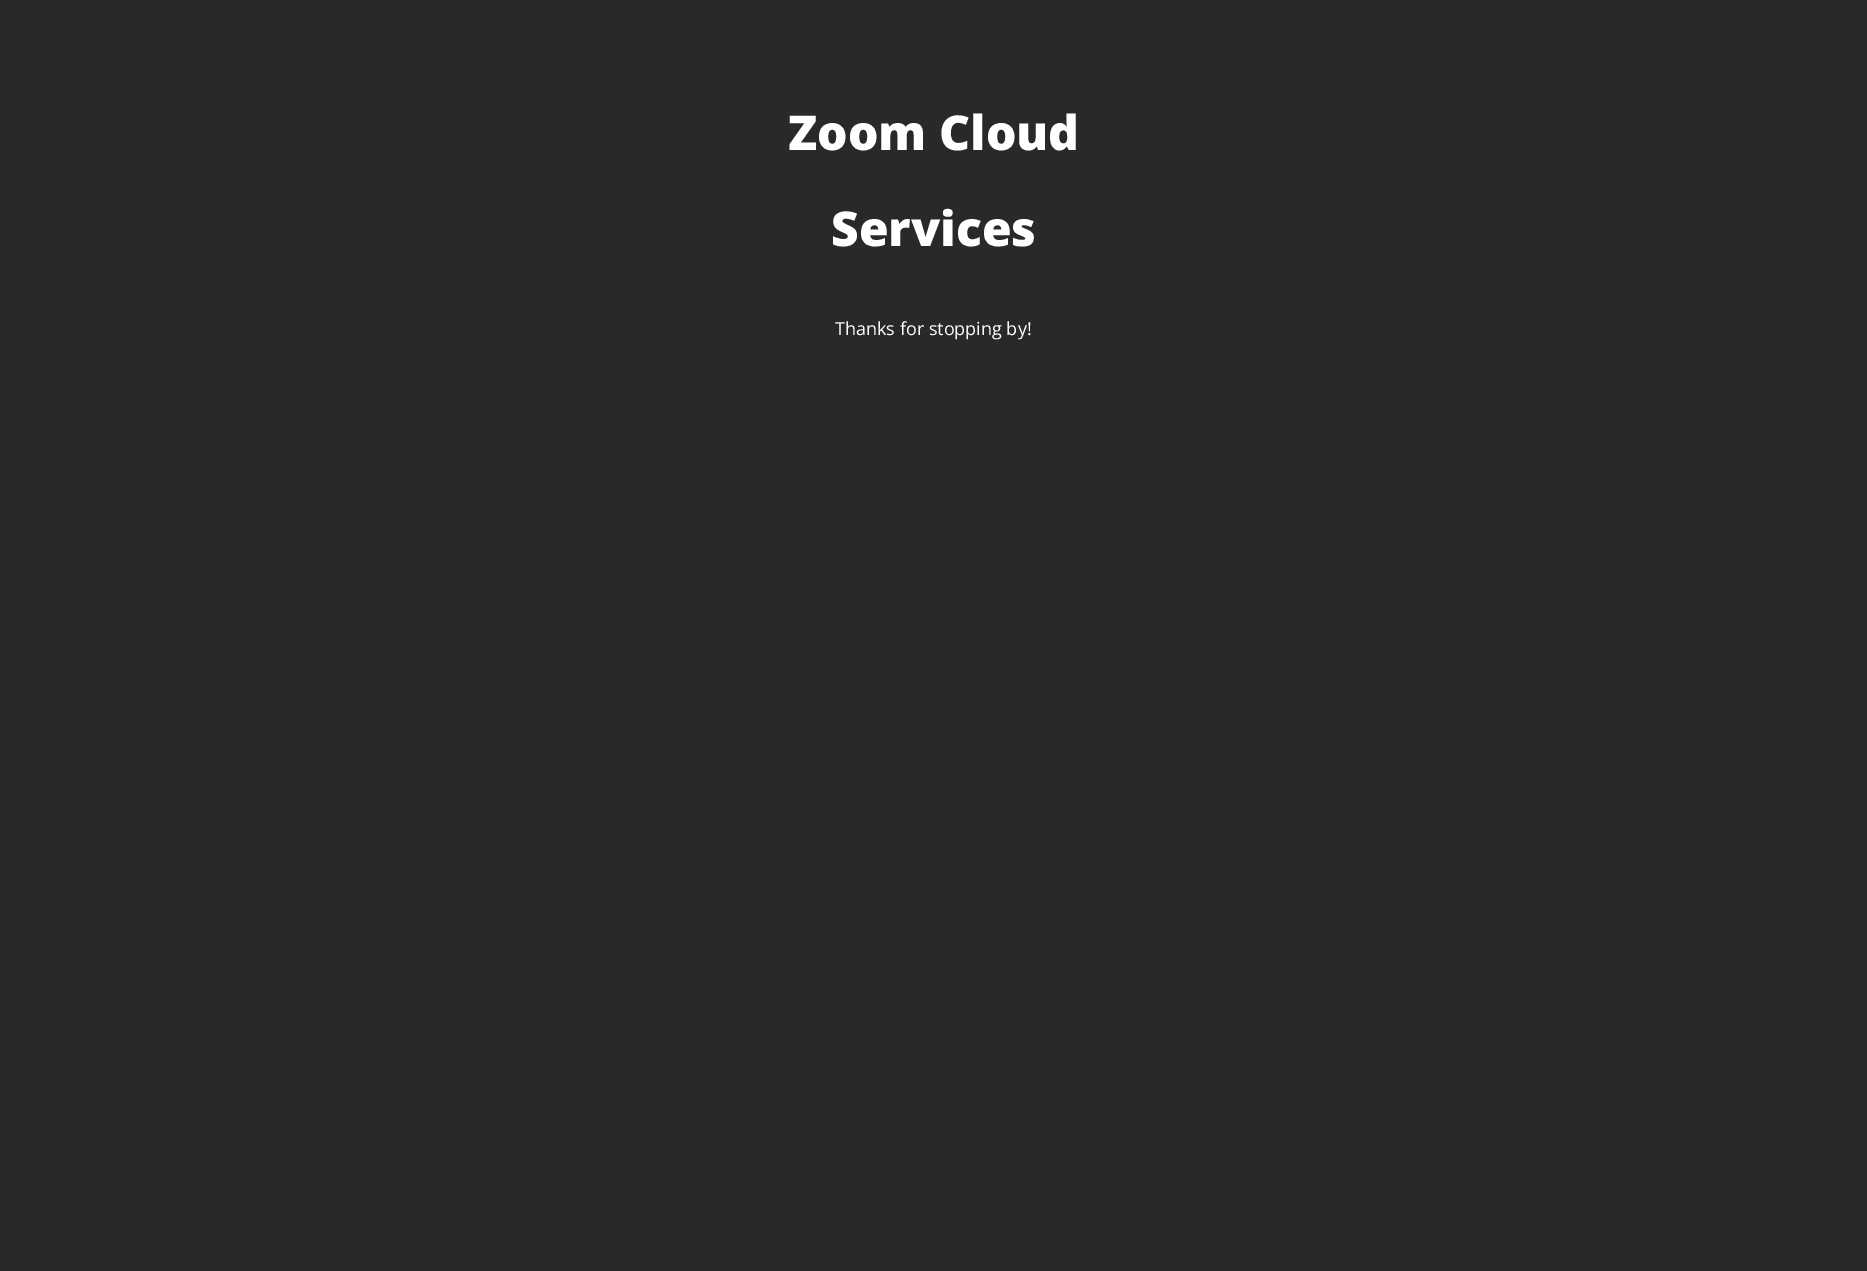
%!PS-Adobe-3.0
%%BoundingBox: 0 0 1867 1271
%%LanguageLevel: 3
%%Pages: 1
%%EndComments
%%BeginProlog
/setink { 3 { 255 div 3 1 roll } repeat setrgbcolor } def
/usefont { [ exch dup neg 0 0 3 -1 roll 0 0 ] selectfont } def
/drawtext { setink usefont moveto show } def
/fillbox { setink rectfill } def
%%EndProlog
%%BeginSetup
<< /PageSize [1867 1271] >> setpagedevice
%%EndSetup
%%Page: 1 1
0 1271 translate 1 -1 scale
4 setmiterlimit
0 0 1867 1271 41 41 41 fillbox
(Zoom Cloud) 788 150 /OpenSans-ExtraBold 48 255 255 255 drawtext
(Services) 831 246 /OpenSans-ExtraBold 48 255 255 255 drawtext
(Thanks for stopping by!) 835 335 /OpenSans-Regular 18 255 255 255 drawtext
showpage
%%EOF
